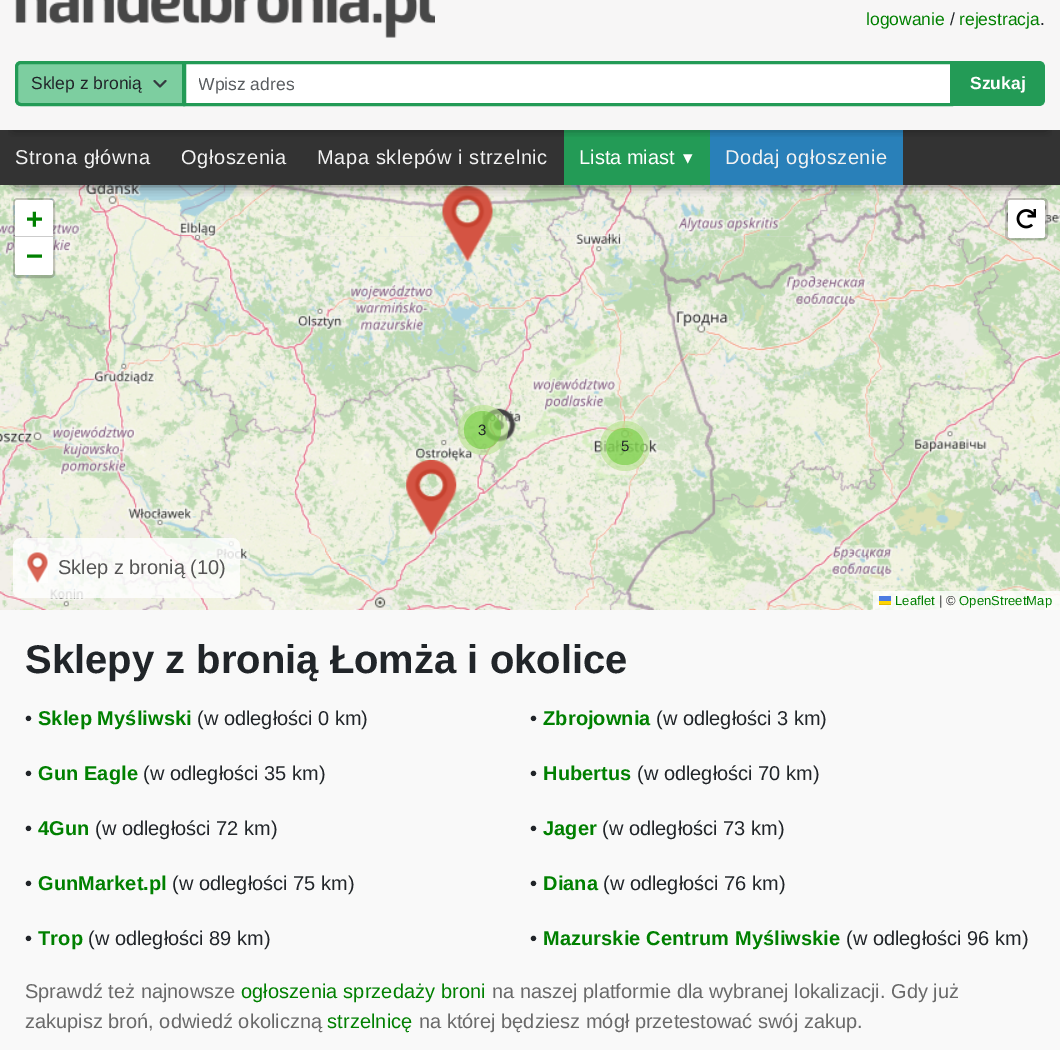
%!PS-Adobe-3.0
%%BoundingBox: 0 0 1060 1050
%%LanguageLevel: 3
%%Pages: 1
%%EndComments
%%BeginProlog
/setink { 3 { 255 div 3 1 roll } repeat setrgbcolor } def
/usefont { [ exch dup neg 0 0 3 -1 roll 0 0 ] selectfont } def
/drawtext { setink usefont moveto show } def
/fillbox { setink rectfill } def
/setalpha { dup .setfillconstantalpha .setstrokeconstantalpha } def
/disc { newpath 0 360 arc closepath } def
/rrect { 5 dict begin { /r /h /w /y /x } { exch def } forall
  x r add y moveto x w add y 2 copy h add r arct x w add y h add x 1 index r arct
  x y h add x y r arct x y 2 copy exch w add exch r arct closepath end } def
/softshadow { 12 dict begin { /a /b /q /h /w /y /x } { exch def } forall gsave /was 0 def
  9 -2 -9 { dup b mul 4 div /e exch def 1 sub .425 mul 2.718 exch exp 1 add a .99 .min exch div /now exch def
    1 1 now sub 1 was sub div sub setalpha /was now def
    w h .min e 2 mul add 0 gt { x e sub y e sub w e 2 mul add h e 2 mul add
      q e add b .6 mul add w h .min 2 div e add .min 0 .max rrect fill } if } for grestore end } def
/drawimage { 5 dict begin { /h /w /y /x /name } { exch def } forall
  gsave x y translate w h scale
  w h 8 [w 0 0 h 0 0] name (r) file false 3 colorimage grestore end } def
%%EndProlog
%%BeginSetup
<< /PageSize [1060 1050] /PageUsesTransparency true >> setpagedevice
%%EndSetup
%%Page: 1 1
0 .pushpdf14devicefilter
0 1050 translate 1 -1 scale
4 setmiterlimit
0 0 1060 1050 247 246 246 fillbox
(assets/img4.rgb) 0 185 230 51 drawimage
(assets/img5.rgb) 230 185 320 51 drawimage
(assets/img6.rgb) 550 185 320 51 drawimage
(assets/img7.rgb) 870 185 190 51 drawimage
0 236 1060 814 249 249 249 fillbox
(assets/img9.rgb) 230 236 320 320 drawimage
(assets/img16.rgb) 442 186 51 76 drawimage
0 0 0 setink
15 158 1030 25 0 6 1 softshadow
0 130 1060 55 51 51 51 fillbox
564 130 146 55 35 155 86 fillbox
710 130 193 55 41 128 185 fillbox
gsave
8 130 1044 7 rectclip
0 0 0 setink
15 -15 1030 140 0 6 1 softshadow
grestore
(assets/img1.rgb) 15 0 420 38 drawimage
(logowanie) 866 25 /LiberationSans-Regular 17.5 0 128 0 drawtext
(/) 950 25 /LiberationSans-Regular 17.5 33 37 41 drawtext
(rejestracja) 959 25 /LiberationSans-Regular 17.5 0 128 0 drawtext
(.) 1040 25 /LiberationSans-Regular 17.5 33 37 41 drawtext
125 206 160 setink
21 61 moveto 185 61 lineto 185 106 lineto 21 106 lineto 17.5 106 15 103.5 15 100 curveto 15 67 lineto 15 63.5 17.5 61 21 61 curveto closepath fill
52 58 64 setink
1.9 setlinewidth
1 setlinecap
1 setlinejoin
154.5 81 moveto 160 86.5 lineto 165.5 81 lineto stroke
35 155 86 setink
3 setlinewidth
0 setlinecap
0 setlinejoin
21 62.5 moveto 183.5 62.5 lineto 183.5 104.5 lineto 21 104.5 lineto 18.5 104.5 16.5 102.5 16.5 100 curveto 16.5 67 lineto 16.5 64.5 18.5 62.5 21 62.5 curveto closepath stroke
(Sklep z bronią) 31 89 /LiberationSans-Regular 17.5 33 37 41 drawtext
255 255 255 setink
184.5 62.5 moveto 951.5 62.5 lineto 951.5 104.5 lineto 184.5 104.5 lineto closepath gsave fill grestore
35 155 86 setink
stroke
gsave
199 74 739 20 rectclip
(Wpisz adres) 198 90 /LiberationSans-Regular 17.5 89 92 95 drawtext
grestore
950 61 moveto 1039 61 lineto 1042.5 61 1045 63.5 1045 67 curveto 1045 100 lineto 1045 103.5 1042.5 106 1039 106 curveto 950 106 lineto closepath fill
(Szukaj) 970 89 /LiberationSans-Bold 17.5 255 255 255 drawtext
/LiberationSans-Regular 20 usefont
242 242 242 setink
15 164 moveto 0.6 0 (Strona główna) ashow
181 164 moveto 0.6 0 (Ogłoszenia) ashow
317 164 moveto 0.6 0 (Mapa sklepów i strzelnic) ashow
(Lista miast) 579 164 /LiberationSans-Regular 20 255 255 255 drawtext
/DejaVuSans-Regular 19 usefont
683 164 moveto 5 0 (▾) ashow
/LiberationSans-Regular 20 usefont
242 242 242 setink
725 164 moveto 0.6 0 (Dodaj ogłoszenie) ashow
(assets/img8.rgb) 0 236 230 320 drawimage
0.2 setalpha
0 0 0 setink
14.5 199.5 39 77 3.5 rrect stroke
1 setalpha
255 255 255 setink
17.5 200 moveto 50.5 200 lineto 52 200 53 201 53 202.5 curveto 53 238 lineto 15 238 lineto 15 202.5 lineto 15 201 16 200 17.5 200 curveto closepath fill
15 236 38 1 204 204 204 fillbox
/DejaVuSansMono-Bold 28 usefont
0 128 0 setink
26 228 moveto 0.1 0 (+) ashow
255 255 255 setink
15 238 moveto 53 238 lineto 53 272.5 lineto 53 274 52 275 50.5 275 curveto 17.5 275 lineto 16 275 15 274 15 272.5 curveto closepath fill
0 128 0 setink
26 265 moveto 0.1 0 (−) ashow
(assets/img11.rgb) 870 236 190 320 drawimage
0.2 setalpha
0 0 0 setink
1006.5 199.5 40 39 3.5 rrect stroke
1 setalpha
255 255 255 setink
1008 200 37 38 2.5 rrect fill
(assets/img2.rgb) 1016 209 20 20 drawimage
(assets/img12.rgb) 0 556 230 54 drawimage
(assets/img13.rgb) 230 556 320 54 drawimage
0.8 setalpha
13 538 227 60 8 rrect fill
0.72 setalpha
28 553 20 30 255 255 255 fillbox
1 setalpha
(assets/img3.rgb) 27 552 21 31 drawimage
(Sklep z bronią \(10\)) 58 574 /LiberationSans-Regular 20 85 85 85 drawtext
(assets/img15.rgb) 870 556 190 54 drawimage
0.8 setalpha
873 591 187 19 255 255 255 fillbox
/LiberationSans-Regular 13 usefont
1 setalpha
0 128 0 setink
895 605 moveto 0.1 0 (Leaflet) ashow
879 596 12 5 76 123 225 fillbox
879 601 12 3 255 213 0 fillbox
879 604 12 1 224 188 0 fillbox
(| ©) 939 605 /LiberationSans-Regular 13 51 51 51 drawtext
0 128 0 setink
959 605 moveto 0.1 0 (OpenStreetMap) ashow
(assets/img10.rgb) 550 236 320 320 drawimage
(assets/img14.rgb) 550 556 320 54 drawimage
(assets/img17.rgb) 482 408 34 34 drawimage
0.6 setalpha
182 226 141 setink
483 430 25 disc fill
110 204 57 setink
464 411 37 38 18.5 rrect fill
1 setalpha
(3) 478 435 /LiberationSans-Regular 15 33 37 41 drawtext
0.6 setalpha
182 226 141 setink
625 446 25 disc fill
110 204 57 setink
606 428 38 37 18.5 rrect fill
1 setalpha
(5) 621 451 /LiberationSans-Regular 15 33 37 41 drawtext
(assets/img18.rgb) 406 460 51 75 drawimage
(Sklepy z bronią Łomża i okolice) 25 673 /LiberationSans-Bold 40 33 37 41 drawtext
(•) 25 725 /LiberationSans-Regular 20 33 37 41 drawtext
/LiberationSans-Bold 20 usefont
0 128 0 setink
38 725 moveto 0.1 0 (Sklep Myśliwski) ashow
(\(w odległości 0 km\)) 197 725 /LiberationSans-Regular 20 33 37 41 drawtext
(•) 530 725 /LiberationSans-Regular 20 33 37 41 drawtext
/LiberationSans-Bold 20 usefont
0 128 0 setink
543 725 moveto 0.1 0 (Zbrojownia) ashow
(\(w odległości 3 km\)) 656 725 /LiberationSans-Regular 20 33 37 41 drawtext
(•) 25 780 /LiberationSans-Regular 20 33 37 41 drawtext
/LiberationSans-Bold 20 usefont
0 128 0 setink
38 780 moveto 0.1 0 (Gun Eagle) ashow
(\(w odległości 35 km\)) 143 780 /LiberationSans-Regular 20 33 37 41 drawtext
(•) 530 780 /LiberationSans-Regular 20 33 37 41 drawtext
/LiberationSans-Bold 20 usefont
0 128 0 setink
543 780 moveto 0.1 0 (Hubertus) ashow
(\(w odległości 70 km\)) 637 780 /LiberationSans-Regular 20 33 37 41 drawtext
(•) 25 835 /LiberationSans-Regular 20 33 37 41 drawtext
/LiberationSans-Bold 20 usefont
0 128 0 setink
38 835 moveto 0.1 0 (4Gun) ashow
(\(w odległości 72 km\)) 95 835 /LiberationSans-Regular 20 33 37 41 drawtext
(•) 530 835 /LiberationSans-Regular 20 33 37 41 drawtext
/LiberationSans-Bold 20 usefont
0 128 0 setink
543 835 moveto 0.1 0 (Jager) ashow
(\(w odległości 73 km\)) 602 835 /LiberationSans-Regular 20 33 37 41 drawtext
(•) 25 890 /LiberationSans-Regular 20 33 37 41 drawtext
/LiberationSans-Bold 20 usefont
0 128 0 setink
38 890 moveto 0.1 0 (GunMarket.pl) ashow
(\(w odległości 75 km\)) 172 890 /LiberationSans-Regular 20 33 37 41 drawtext
(•) 530 890 /LiberationSans-Regular 20 33 37 41 drawtext
/LiberationSans-Bold 20 usefont
0 128 0 setink
543 890 moveto 0.1 0 (Diana) ashow
(\(w odległości 76 km\)) 603 890 /LiberationSans-Regular 20 33 37 41 drawtext
(•) 25 945 /LiberationSans-Regular 20 33 37 41 drawtext
/LiberationSans-Bold 20 usefont
0 128 0 setink
38 945 moveto 0.1 0 (Trop) ashow
(\(w odległości 89 km\)) 88 945 /LiberationSans-Regular 20 33 37 41 drawtext
(•) 530 945 /LiberationSans-Regular 20 33 37 41 drawtext
/LiberationSans-Bold 20 usefont
0 128 0 setink
543 945 moveto 0.1 0 (Mazurskie Centrum Myśliwskie) ashow
(\(w odległości 96 km\)) 846 945 /LiberationSans-Regular 20 33 37 41 drawtext
(Sprawdź też najnowsze) 25 998 /LiberationSans-Regular 20 105 105 105 drawtext
0 128 0 setink
241 998 moveto 0.1 0 (ogłoszenia sprzedaży broni) ashow
(na naszej platformie dla wybranej lokalizacji. Gdy już) 492 998 /LiberationSans-Regular 20 105 105 105 drawtext
(zakupisz broń, odwiedź okoliczną) 25 1028 /LiberationSans-Regular 20 105 105 105 drawtext
0 128 0 setink
327 1028 moveto 0.1 0 (strzelnicę) ashow
(na której będziesz mógł przetestować swój zakup.) 419 1028 /LiberationSans-Regular 20 105 105 105 drawtext
.poppdf14devicefilter showpage
%%EOF
